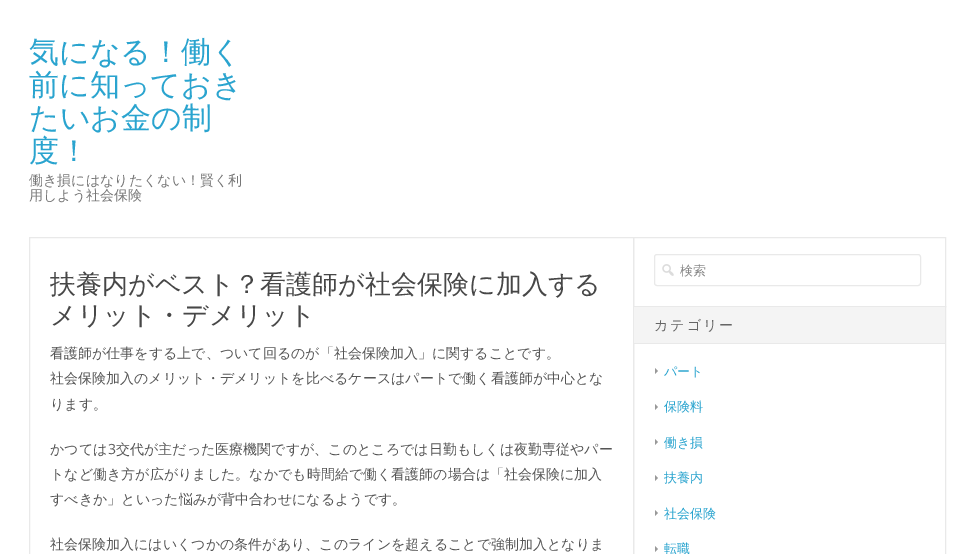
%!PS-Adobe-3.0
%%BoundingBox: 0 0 975 554
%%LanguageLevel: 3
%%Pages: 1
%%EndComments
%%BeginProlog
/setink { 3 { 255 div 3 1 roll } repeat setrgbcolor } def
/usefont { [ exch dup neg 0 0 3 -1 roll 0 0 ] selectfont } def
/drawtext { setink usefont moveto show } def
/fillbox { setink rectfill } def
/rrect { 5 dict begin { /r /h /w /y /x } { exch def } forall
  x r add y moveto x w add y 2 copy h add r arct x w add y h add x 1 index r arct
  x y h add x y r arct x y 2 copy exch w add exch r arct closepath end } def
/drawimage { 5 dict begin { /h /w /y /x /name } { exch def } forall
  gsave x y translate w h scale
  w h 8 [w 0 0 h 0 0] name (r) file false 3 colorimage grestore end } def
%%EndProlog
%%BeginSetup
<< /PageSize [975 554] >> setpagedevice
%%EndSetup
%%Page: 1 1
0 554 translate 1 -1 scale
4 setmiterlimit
0 0 975 554 255 255 255 fillbox
(気になる！働く) 29 62 /WenQuanYiZenHei-Medium 30 42 164 207 drawtext
(前に知っておき) 29 95 /WenQuanYiZenHei-Medium 30 42 164 207 drawtext
(たいお金の制) 29 128 /WenQuanYiZenHei-Medium 30 42 164 207 drawtext
(度！) 29 161 /WenQuanYiZenHei-Medium 30 42 164 207 drawtext
(働き損にはなりたくない！賢く利) 29 185 /WenQuanYiZenHei-Medium 14 119 119 119 drawtext
(用しよう社会保険) 29 200 /WenQuanYiZenHei-Medium 14 119 119 119 drawtext
233 233 233 setink
29.5 237.5 604 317 rectstroke
(扶養内がベスト？看護師が社会保険に加入する) 50 293 /WenQuanYiZenHei-Medium 26 71 71 71 drawtext
(メリット・デメリット) 50 324 /WenQuanYiZenHei-Medium 26 71 71 71 drawtext
(看護師が仕事をする上で、ついて回るのが「社会保険加入」に関することです。) 50 358 /WenQuanYiZenHei-Medium 14 85 85 85 drawtext
(社会保険加入のメリット・デメリットを比べるケースはパートで働く看護師が中心とな) 50 383 /WenQuanYiZenHei-Medium 14 85 85 85 drawtext
(ります。) 50 409 /WenQuanYiZenHei-Medium 14 85 85 85 drawtext
(かつては) 50 454 /WenQuanYiZenHei-Medium 14 85 85 85 drawtext
(3) 108 454 /OpenSans-Regular 14 85 85 85 drawtext
(交代が主だった医療機関ですが、このところでは日勤もしくは夜勤専従やパー) 116 454 /WenQuanYiZenHei-Medium 14 85 85 85 drawtext
(トなど働き方が広がりました。なかでも時間給で働く看護師の場合は「社会保険に加入) 50 479 /WenQuanYiZenHei-Medium 14 85 85 85 drawtext
(すべきか」といった悩みが背中合わせになるようです。) 50 504 /WenQuanYiZenHei-Medium 14 85 85 85 drawtext
(社会保険加入にはいくつかの条件があり、このラインを超えることで強制加入となりま) 50 549 /WenQuanYiZenHei-Medium 14 85 85 85 drawtext
233 233 233 setink
633.5 237.5 312 69 rectstroke
654.5 254.5 266 31 2.5 rrect stroke
(assets/img1.rgb) 662 264 12 12 drawimage
(検索) 680 275 /WenQuanYiZenHei-Medium 13 136 136 136 drawtext
233 233 233 setink
633.5 306.5 312 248 rectstroke
634 307 311 36 244 244 244 fillbox
634 343 311 1 233 233 233 fillbox
/WenQuanYiZenHei-Medium 14 usefont
102 102 102 setink
654 330 moveto 2 0 (カテゴリー) ashow
153 153 153 setink
655 374 moveto 655 368 lineto 658 371 lineto closepath fill
(パート) 664 376 /WenQuanYiZenHei-Medium 13 42 164 207 drawtext
153 153 153 setink
655 410 moveto 655 404 lineto 658 407 lineto closepath fill
(保険料) 664 411 /WenQuanYiZenHei-Medium 13 42 164 207 drawtext
153 153 153 setink
655 445 moveto 655 439 lineto 658 442 lineto closepath fill
(働き損) 664 447 /WenQuanYiZenHei-Medium 13 42 164 207 drawtext
153 153 153 setink
655 481 moveto 655 475 lineto 658 478 lineto closepath fill
(扶養内) 664 482 /WenQuanYiZenHei-Medium 13 42 164 207 drawtext
153 153 153 setink
655 516 moveto 655 510 lineto 658 513 lineto closepath fill
(社会保険) 664 518 /WenQuanYiZenHei-Medium 13 42 164 207 drawtext
153 153 153 setink
655 552 moveto 655 546 lineto 658 549 lineto closepath fill
(転職) 664 553 /WenQuanYiZenHei-Medium 13 42 164 207 drawtext
showpage
%%EOF
